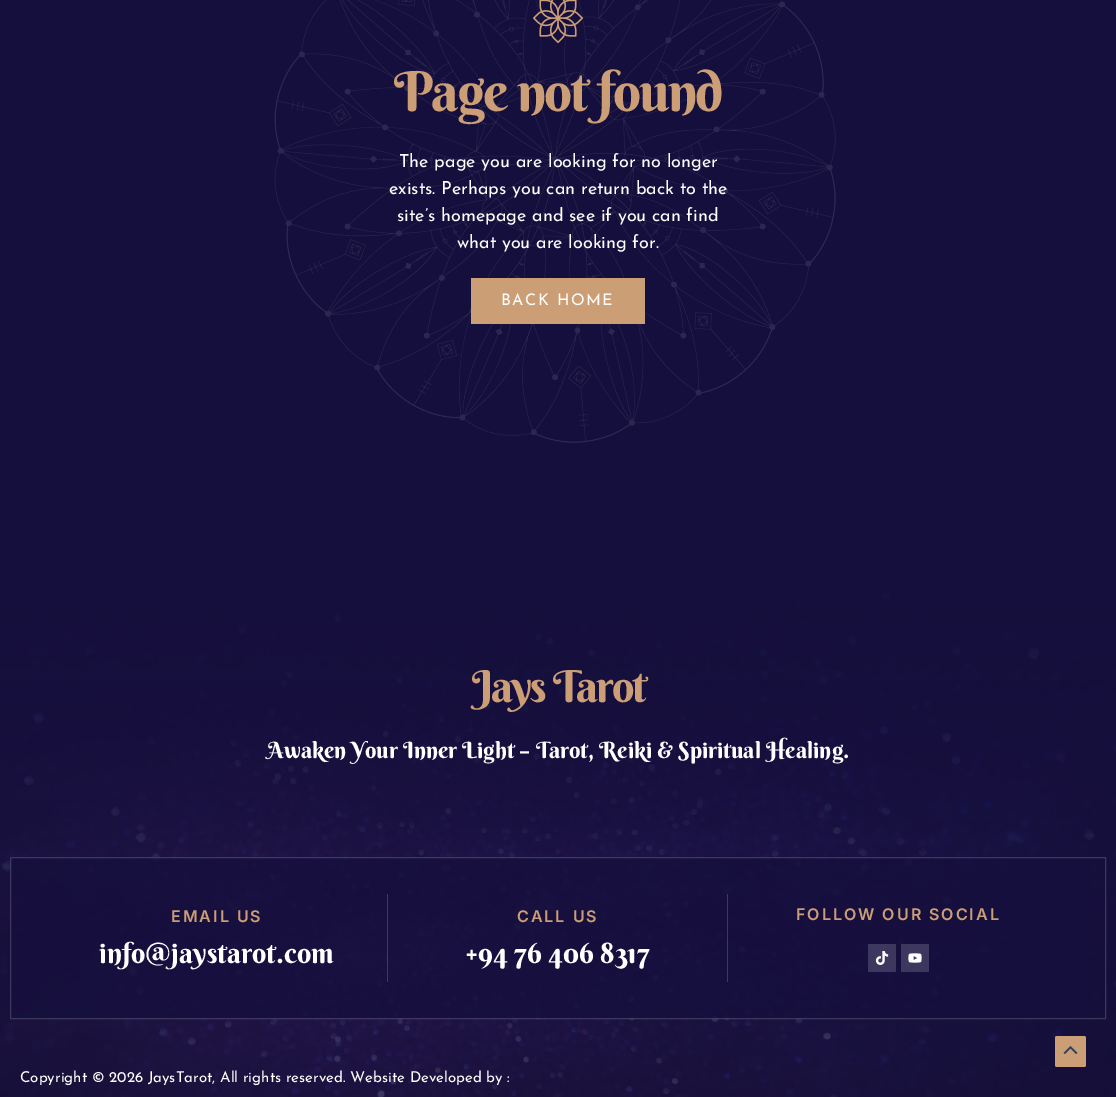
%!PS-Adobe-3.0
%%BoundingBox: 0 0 1116 1097
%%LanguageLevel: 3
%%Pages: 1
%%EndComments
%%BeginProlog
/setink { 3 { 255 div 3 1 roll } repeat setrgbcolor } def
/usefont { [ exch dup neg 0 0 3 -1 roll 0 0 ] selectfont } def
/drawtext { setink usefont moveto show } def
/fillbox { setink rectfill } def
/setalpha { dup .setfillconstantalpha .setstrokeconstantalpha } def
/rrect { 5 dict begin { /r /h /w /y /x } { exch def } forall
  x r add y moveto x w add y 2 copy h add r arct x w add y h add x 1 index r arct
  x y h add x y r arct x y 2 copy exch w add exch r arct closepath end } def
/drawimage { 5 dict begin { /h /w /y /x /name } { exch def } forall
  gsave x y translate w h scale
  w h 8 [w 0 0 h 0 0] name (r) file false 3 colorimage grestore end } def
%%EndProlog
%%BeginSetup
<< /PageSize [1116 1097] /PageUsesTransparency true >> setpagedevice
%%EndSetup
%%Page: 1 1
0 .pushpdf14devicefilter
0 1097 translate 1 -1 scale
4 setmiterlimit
0 0 1116 1097 21 15 61 fillbox
(assets/img1.rgb) 274 0 562 443 drawimage
(assets/img2.rgb) 533 0 50 43 drawimage
/BerkshireSwash-Regular 55 usefont
204 158 117 setink
394 111 moveto -2 0 (Page not found) ashow
(The page you are looking for no longer) 399 167 /JosefinSans-Regular 18 255 255 255 drawtext
(exists. Perhaps you can return back to the) 389 194 /JosefinSans-Regular 18 255 255 255 drawtext
(site’s homepage and see if you can find) 397 221 /JosefinSans-Regular 18 255 255 255 drawtext
(what you are looking for.) 457 248 /JosefinSans-Regular 18 255 255 255 drawtext
471 278 174 46 204 158 117 fillbox
/JosefinSans-Regular 16 usefont
255 255 255 setink
501 305 moveto 1.5 0 (BACK HOME) ashow
(assets/img3.rgb) 0 576 1116 521 drawimage
/BerkshireSwash-Regular 44 usefont
204 158 117 setink
472 702 moveto -2 0 (Jays Tarot) ashow
(Awaken Your Inner Light – Tarot, Reiki & Spiritual Healing.) 267 758 /BerkshireSwash-Regular 22.5 255 255 255 drawtext
0.8 setalpha
10 857 1081 162 21 15 61 fillbox
0.17 setalpha
255 255 255 setink
10.5 857.5 1095 161 rectstroke
387 894 1 88 255 255 255 fillbox
/Inter-SemiBold 16 usefont
1 setalpha
204 158 117 setink
171 922 moveto 2 0 (EMAIL US) ashow
(info@jaystarot.com) 99 963 /BerkshireSwash-Regular 28.1 255 255 255 drawtext
727 894 1 88 62 56 95 fillbox
/Inter-SemiBold 16 usefont
204 158 117 setink
517 922 moveto 2 0 (CALL US) ashow
(+94 76 406 8317) 465 963 /BerkshireSwash-Regular 28.1 255 255 255 drawtext
/Inter-SemiBold 16 usefont
204 158 117 setink
796 920 moveto 2 0 (FOLLOW OUR SOCIAL) ashow
0.17 setalpha
868 944 28 28 255 255 255 fillbox
1 setalpha
(assets/img4.rgb) 875 951 14 14 drawimage
0.17 setalpha
901 944 28 28 255 255 255 fillbox
1 setalpha
(assets/img5.rgb) 908 953 14 10 drawimage
(Copyright © 2026 JaysTarot, All rights reserved. Website Developed by :) 20 1082 /JosefinSans-Regular 15 255 255 255 drawtext
204 158 117 setink
1055 1036 31 31 2 rrect fill
(assets/img6.rgb) 1063 1045 15 9 drawimage
.poppdf14devicefilter showpage
%%EOF
